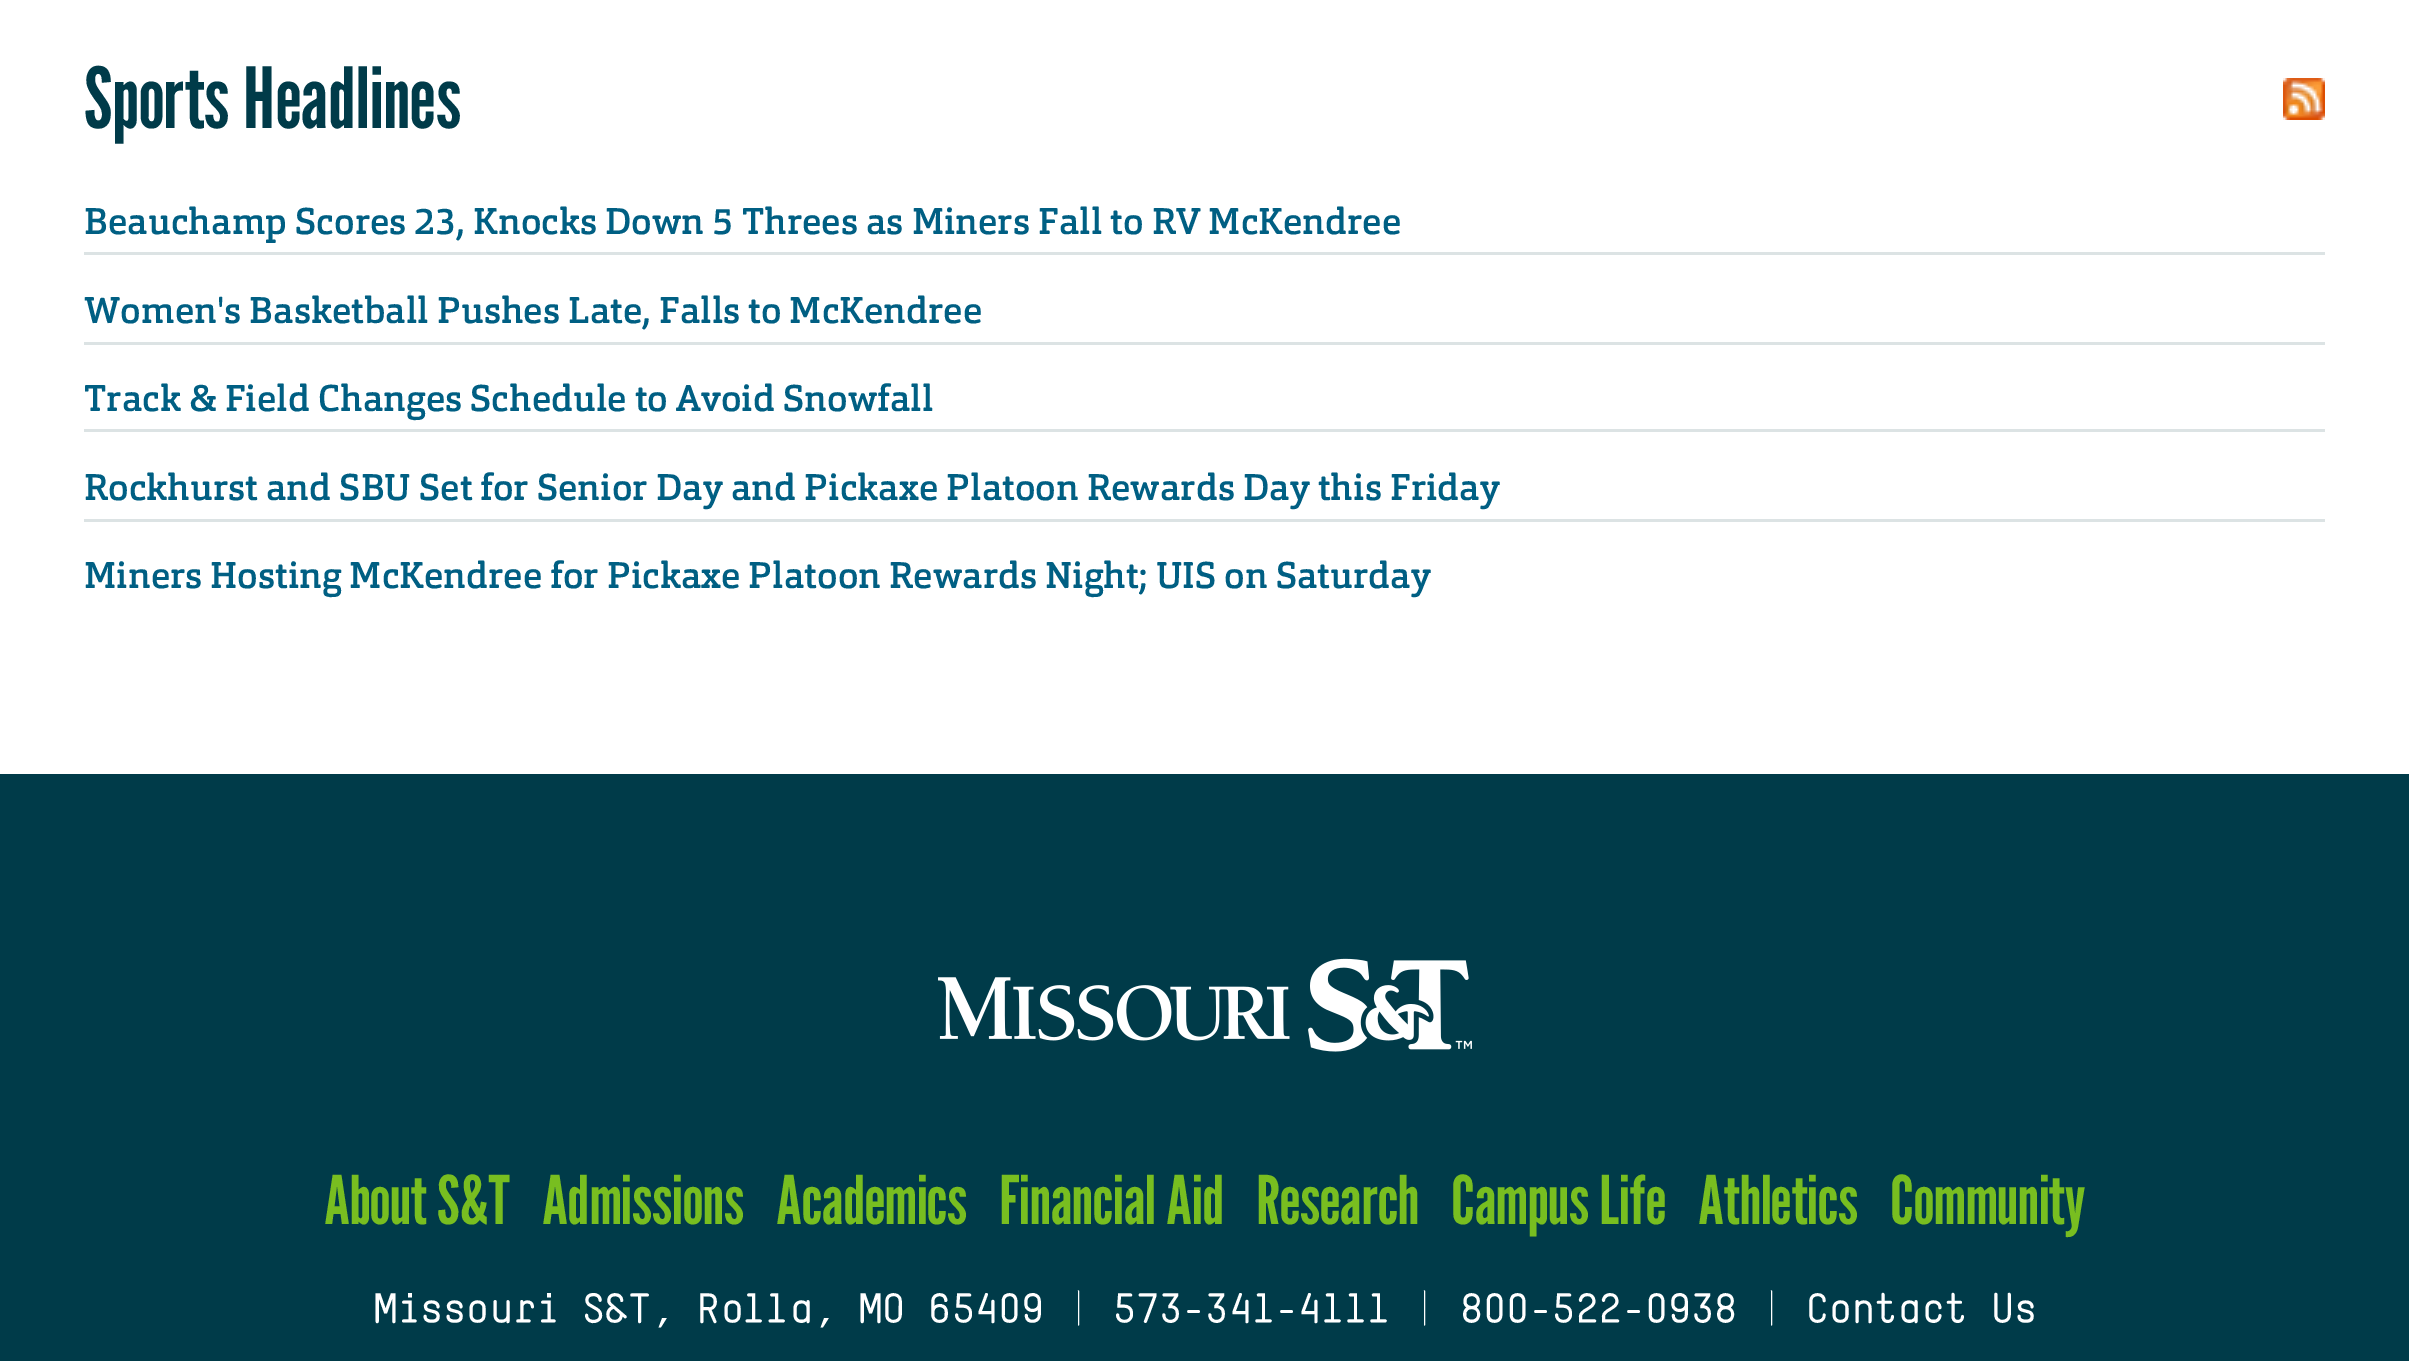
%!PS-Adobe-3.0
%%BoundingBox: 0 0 2409 1361
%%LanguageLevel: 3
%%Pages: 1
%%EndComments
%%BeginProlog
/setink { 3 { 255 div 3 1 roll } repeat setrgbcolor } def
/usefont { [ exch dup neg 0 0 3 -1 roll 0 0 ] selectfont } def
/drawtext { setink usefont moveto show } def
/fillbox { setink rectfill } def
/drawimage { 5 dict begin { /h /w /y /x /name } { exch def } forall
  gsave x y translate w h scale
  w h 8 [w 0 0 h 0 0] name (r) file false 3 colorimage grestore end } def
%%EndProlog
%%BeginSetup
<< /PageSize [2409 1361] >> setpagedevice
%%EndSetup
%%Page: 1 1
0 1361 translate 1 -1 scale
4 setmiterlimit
0 0 2409 1361 255 255 255 fillbox
/LeagueGothic-Regular 84 usefont
0 59 73 setink
84 128 moveto 0.4 0 (Sports Headlines) ashow
(assets/img1.rgb) 2283 78 42 42 drawimage
84 252 2241 3 220 227 228 fillbox
(Beauchamp Scores 23, Knocks Down 5 Threes as Miners Fall to RV McKendree) 84 234 /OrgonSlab-Medium 36.75 0 95 131 drawtext
84 342 2241 3 220 227 228 fillbox
(Women's Basketball Pushes Late, Falls to McKendree) 84 323 /OrgonSlab-Medium 36.75 0 95 131 drawtext
84 429 2241 3 220 227 228 fillbox
(Track & Field Changes Schedule to Avoid Snowfall) 84 411 /OrgonSlab-Medium 36.75 0 95 131 drawtext
84 519 2241 3 220 227 228 fillbox
(Rockhurst and SBU Set for Senior Day and Pickaxe Platoon Rewards Day this Friday) 84 500 /OrgonSlab-Medium 36.75 0 95 131 drawtext
(Miners Hosting McKendree for Pickaxe Platoon Rewards Night; UIS on Saturday) 84 588 /OrgonSlab-Medium 36.75 0 95 131 drawtext
0 774 2409 587 0 59 73 fillbox
(assets/img2.rgb) 938 958 534 94 drawimage
(About S&T) 324 1224 /LeagueGothic-Regular 67 120 190 32 drawtext
(Admissions) 542 1224 /LeagueGothic-Regular 67 120 190 32 drawtext
(Academics) 776 1224 /LeagueGothic-Regular 67 120 190 32 drawtext
(Financial Aid) 999 1224 /LeagueGothic-Regular 67 120 190 32 drawtext
(Research) 1256 1224 /LeagueGothic-Regular 67 120 190 32 drawtext
(Campus Life) 1451 1224 /LeagueGothic-Regular 67 120 190 32 drawtext
(Athletics) 1698 1224 /LeagueGothic-Regular 67 120 190 32 drawtext
(Community) 1890 1224 /LeagueGothic-Regular 67 120 190 32 drawtext
/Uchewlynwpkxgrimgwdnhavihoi-Bold 42 usefont
255 255 255 setink
373 1323 moveto -2.1 0 (Missouri S&T, Rolla, MO 65409) ashow
/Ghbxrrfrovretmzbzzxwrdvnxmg-Light 42 usefont
1066 1323 moveto -2.1 0 (|) ashow
/Uchewlynwpkxgrimgwdnhavihoi-Bold 42 usefont
1112 1323 moveto -2.1 0 (573-341-4111) ashow
/Ghbxrrfrovretmzbzzxwrdvnxmg-Light 42 usefont
1412 1323 moveto -2.1 0 (|) ashow
/Uchewlynwpkxgrimgwdnhavihoi-Bold 42 usefont
1459 1323 moveto -2.1 0 (800-522-0938) ashow
/Ghbxrrfrovretmzbzzxwrdvnxmg-Light 42 usefont
1759 1323 moveto -2.1 0 (|) ashow
/Uchewlynwpkxgrimgwdnhavihoi-Bold 42 usefont
1805 1323 moveto -2.1 0 (Contact Us) ashow
showpage
%%EOF
